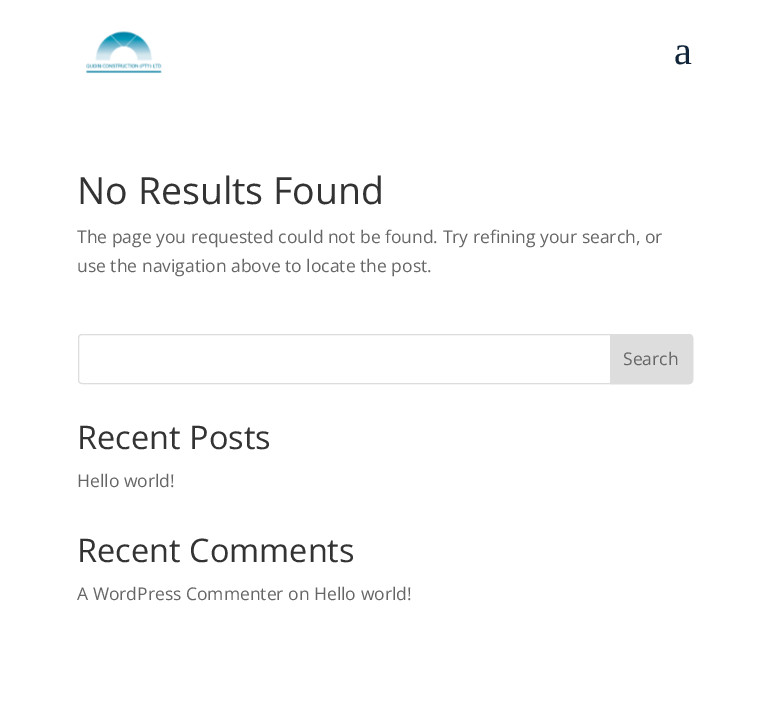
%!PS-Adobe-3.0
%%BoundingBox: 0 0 768 722
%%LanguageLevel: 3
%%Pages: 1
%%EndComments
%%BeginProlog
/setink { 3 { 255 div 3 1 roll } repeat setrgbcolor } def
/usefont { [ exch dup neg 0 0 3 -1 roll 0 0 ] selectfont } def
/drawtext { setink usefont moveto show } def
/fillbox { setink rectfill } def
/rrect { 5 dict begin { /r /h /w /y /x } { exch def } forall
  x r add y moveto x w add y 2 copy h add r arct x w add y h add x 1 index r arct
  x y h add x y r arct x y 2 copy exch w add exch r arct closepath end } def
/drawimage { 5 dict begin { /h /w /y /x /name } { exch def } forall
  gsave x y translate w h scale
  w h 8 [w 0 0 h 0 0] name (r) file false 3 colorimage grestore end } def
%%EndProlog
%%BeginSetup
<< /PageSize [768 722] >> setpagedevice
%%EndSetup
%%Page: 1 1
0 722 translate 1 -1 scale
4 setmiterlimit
0 0 768 722 255 255 255 fillbox
(assets/img1.rgb) 86 31 76 43 drawimage
(a) 674 64 /LiberationSerif-Regular 40 15 36 56 drawtext
(No Results Found) 77 204 /OpenSans-Regular 37.5 51 51 51 drawtext
(The page you requested could not be found. Try refining your search, or) 77 243 /OpenSans-Regular 17.5 102 102 102 drawtext
(use the navigation above to locate the post.) 77 272 /OpenSans-Regular 17.5 102 102 102 drawtext
221 221 221 setink
78.5 334.5 614 49 3.5 rrect stroke
610.5 334.5 moveto 689 334.5 lineto 691 334.5 692.5 336 692.5 338 curveto 692.5 380 lineto 692.5 382 691 383.5 689 383.5 curveto 610.5 383.5 lineto closepath gsave fill grestore
stroke
(Search) 623 365 /OpenSans-Regular 17.5 102 102 102 drawtext
(Recent Posts) 77 449 /OpenSans-Regular 32.5 51 51 51 drawtext
(Hello world!) 77 487 /OpenSans-Regular 17.5 102 102 102 drawtext
(Recent Comments) 77 562 /OpenSans-Regular 32.5 51 51 51 drawtext
(A WordPress Commenter on Hello world!) 77 600 /OpenSans-Regular 17.5 102 102 102 drawtext
showpage
%%EOF
